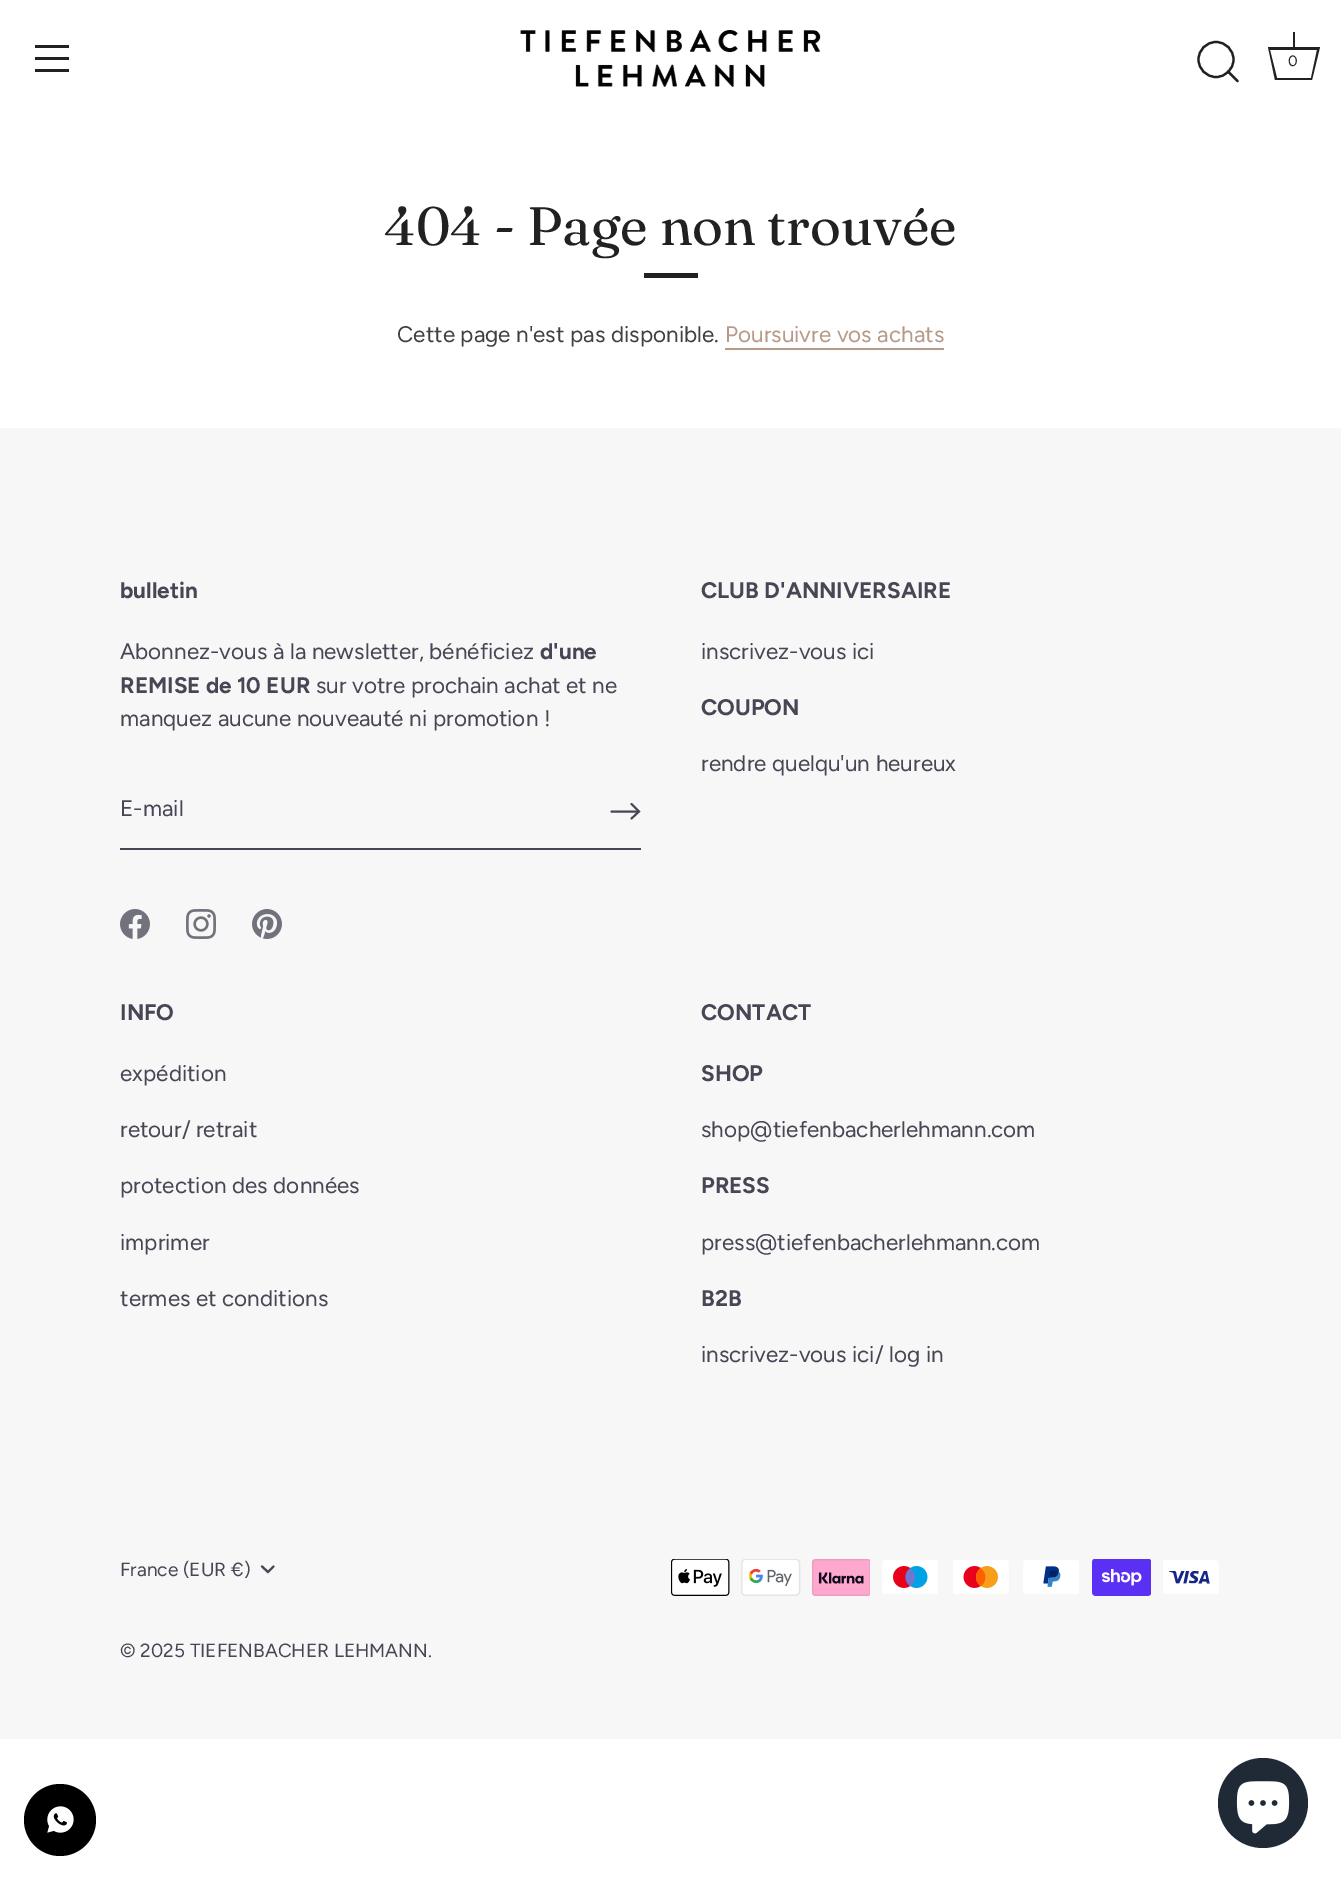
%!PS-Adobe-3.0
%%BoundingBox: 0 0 1341 1879
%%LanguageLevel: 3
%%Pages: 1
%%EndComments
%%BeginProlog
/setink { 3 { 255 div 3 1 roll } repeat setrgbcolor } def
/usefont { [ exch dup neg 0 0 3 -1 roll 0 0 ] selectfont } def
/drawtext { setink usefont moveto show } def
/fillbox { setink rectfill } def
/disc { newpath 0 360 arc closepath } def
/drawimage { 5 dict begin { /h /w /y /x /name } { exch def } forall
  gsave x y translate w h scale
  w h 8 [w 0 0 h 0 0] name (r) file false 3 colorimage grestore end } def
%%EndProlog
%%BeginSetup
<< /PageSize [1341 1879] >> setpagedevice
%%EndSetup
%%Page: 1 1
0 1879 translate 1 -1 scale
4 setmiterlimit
0 0 1341 1879 255 255 255 fillbox
35 45 34 3 33 33 33 fillbox
35 57 34 3 33 33 33 fillbox
35 69 34 3 33 33 33 fillbox
(assets/img1.rgb) 520 30 301 57 drawimage
2.2 setlinewidth
1216 59.5 17.5 disc stroke
1 setlinecap
1 setlinejoin
1237.5 81 moveto 1228 71.5 lineto stroke
1293 32 2 15 33 33 33 fillbox
1317 50 moveto 1311 78 lineto 1277 78 lineto 1270 50 lineto 1317 50 lineto 1320 47 moveto 1268 47 lineto 1275 80 lineto 1312 80 lineto closepath fill
(0) 1288 66 /Figtree-Regular 15 33 33 33 drawtext
(404 - Page non trouvée) 384 245 /Fraunces-Regular 54 33 33 33 drawtext
644 273 54 5 33 33 33 fillbox
(Cette page n'est pas disponible.) 397 342 /Figtree-Regular 22.5 66 63 63 drawtext
(Poursuivre vos achats) 725 342 /Figtree-Regular 22.5 183 153 135 drawtext
725 348 219 2 183 153 135 fillbox
0 428 1341 1311 247 247 247 fillbox
(bulletin) 120 598 /Figtree-Bold 22.5 70 70 84 drawtext
(Abonnez-vous à la newsletter, bénéficiez) 120 659 /Figtree-Regular 22.5 70 70 84 drawtext
(d'une) 540 659 /Figtree-Bold 22.5 70 70 84 drawtext
(REMISE de 10 EUR) 120 693 /Figtree-Bold 22.5 70 70 84 drawtext
(sur votre prochain achat et ne) 316 693 /Figtree-Regular 22.5 70 70 84 drawtext
(manquez aucune nouveauté ni promotion !) 120 726 /Figtree-Regular 22.5 70 70 84 drawtext
120 848 521 2 70 70 84 fillbox
(E-mail) 120 816 /Figtree-Regular 22.5 70 70 84 drawtext
1.9 setlinewidth
0 setlinejoin
631.5 818.5 moveto 639 811.5 lineto 631.5 804 lineto stroke
1 setlinejoin
638 811.5 moveto 611.5 811.5 lineto stroke
(assets/img2.rgb) 120 909 30 30 drawimage
(assets/img3.rgb) 186 909 30 30 drawimage
(assets/img4.rgb) 252 909 30 30 drawimage
(CLUB D'ANNIVERSAIRE) 701 598 /Figtree-Bold 22.5 70 70 84 drawtext
(inscrivez-vous ici) 701 659 /Figtree-Regular 22.5 70 70 84 drawtext
(COUPON) 701 715 /Figtree-Bold 22.5 70 70 84 drawtext
(rendre quelqu'un heureux) 701 771 /Figtree-Regular 22.5 70 70 84 drawtext
(INFO) 120 1020 /Figtree-Bold 22.5 70 70 84 drawtext
(expédition) 120 1081 /Figtree-Regular 22.5 70 70 84 drawtext
(retour/ retrait) 120 1137 /Figtree-Regular 22.5 70 70 84 drawtext
(protection des données) 120 1193 /Figtree-Regular 22.5 70 70 84 drawtext
(imprimer) 120 1250 /Figtree-Regular 22.5 70 70 84 drawtext
(termes et conditions) 120 1306 /Figtree-Regular 22.5 70 70 84 drawtext
(CONTACT) 701 1020 /Figtree-Bold 22.5 70 70 84 drawtext
(SHOP) 701 1081 /Figtree-Bold 22.5 70 70 84 drawtext
(shop@tiefenbacherlehmann.com) 701 1137 /Figtree-Regular 22.5 70 70 84 drawtext
(PRESS) 701 1193 /Figtree-Bold 22.5 70 70 84 drawtext
(press@tiefenbacherlehmann.com) 701 1250 /Figtree-Regular 22.5 70 70 84 drawtext
(B2B) 701 1306 /Figtree-Bold 22.5 70 70 84 drawtext
(inscrivez-vous ici/ log in) 701 1362 /Figtree-Regular 22.5 70 70 84 drawtext
(France \(EUR €\)) 120 1576 /Figtree-Regular 19.1 70 70 84 drawtext
2.1 setlinewidth
0 setlinejoin
262 1566.5 moveto 268 1572 lineto 273.5 1566.5 lineto stroke
(© 2025 TIEFENBACHER LEHMANN.) 120 1657 /Figtree-Regular 19.1 70 70 84 drawtext
(assets/img5.rgb) 671 1559 59 37 drawimage
(assets/img6.rgb) 741 1559 60 37 drawimage
(assets/img7.rgb) 812 1559 58 37 drawimage
(assets/img8.rgb) 882 1560 56 34 drawimage
(assets/img9.rgb) 953 1560 56 34 drawimage
(assets/img10.rgb) 1023 1560 56 34 drawimage
(assets/img11.rgb) 1092 1559 59 37 drawimage
(assets/img12.rgb) 1163 1560 56 34 drawimage
0 0 0 setink
60 1820 36 disc fill
(assets/img13.rgb) 47 1806 27 27 drawimage
32 42 54 setink
1263 1803 45 disc fill
(assets/img14.rgb) 1236 1781 54 53 drawimage
showpage
%%EOF
